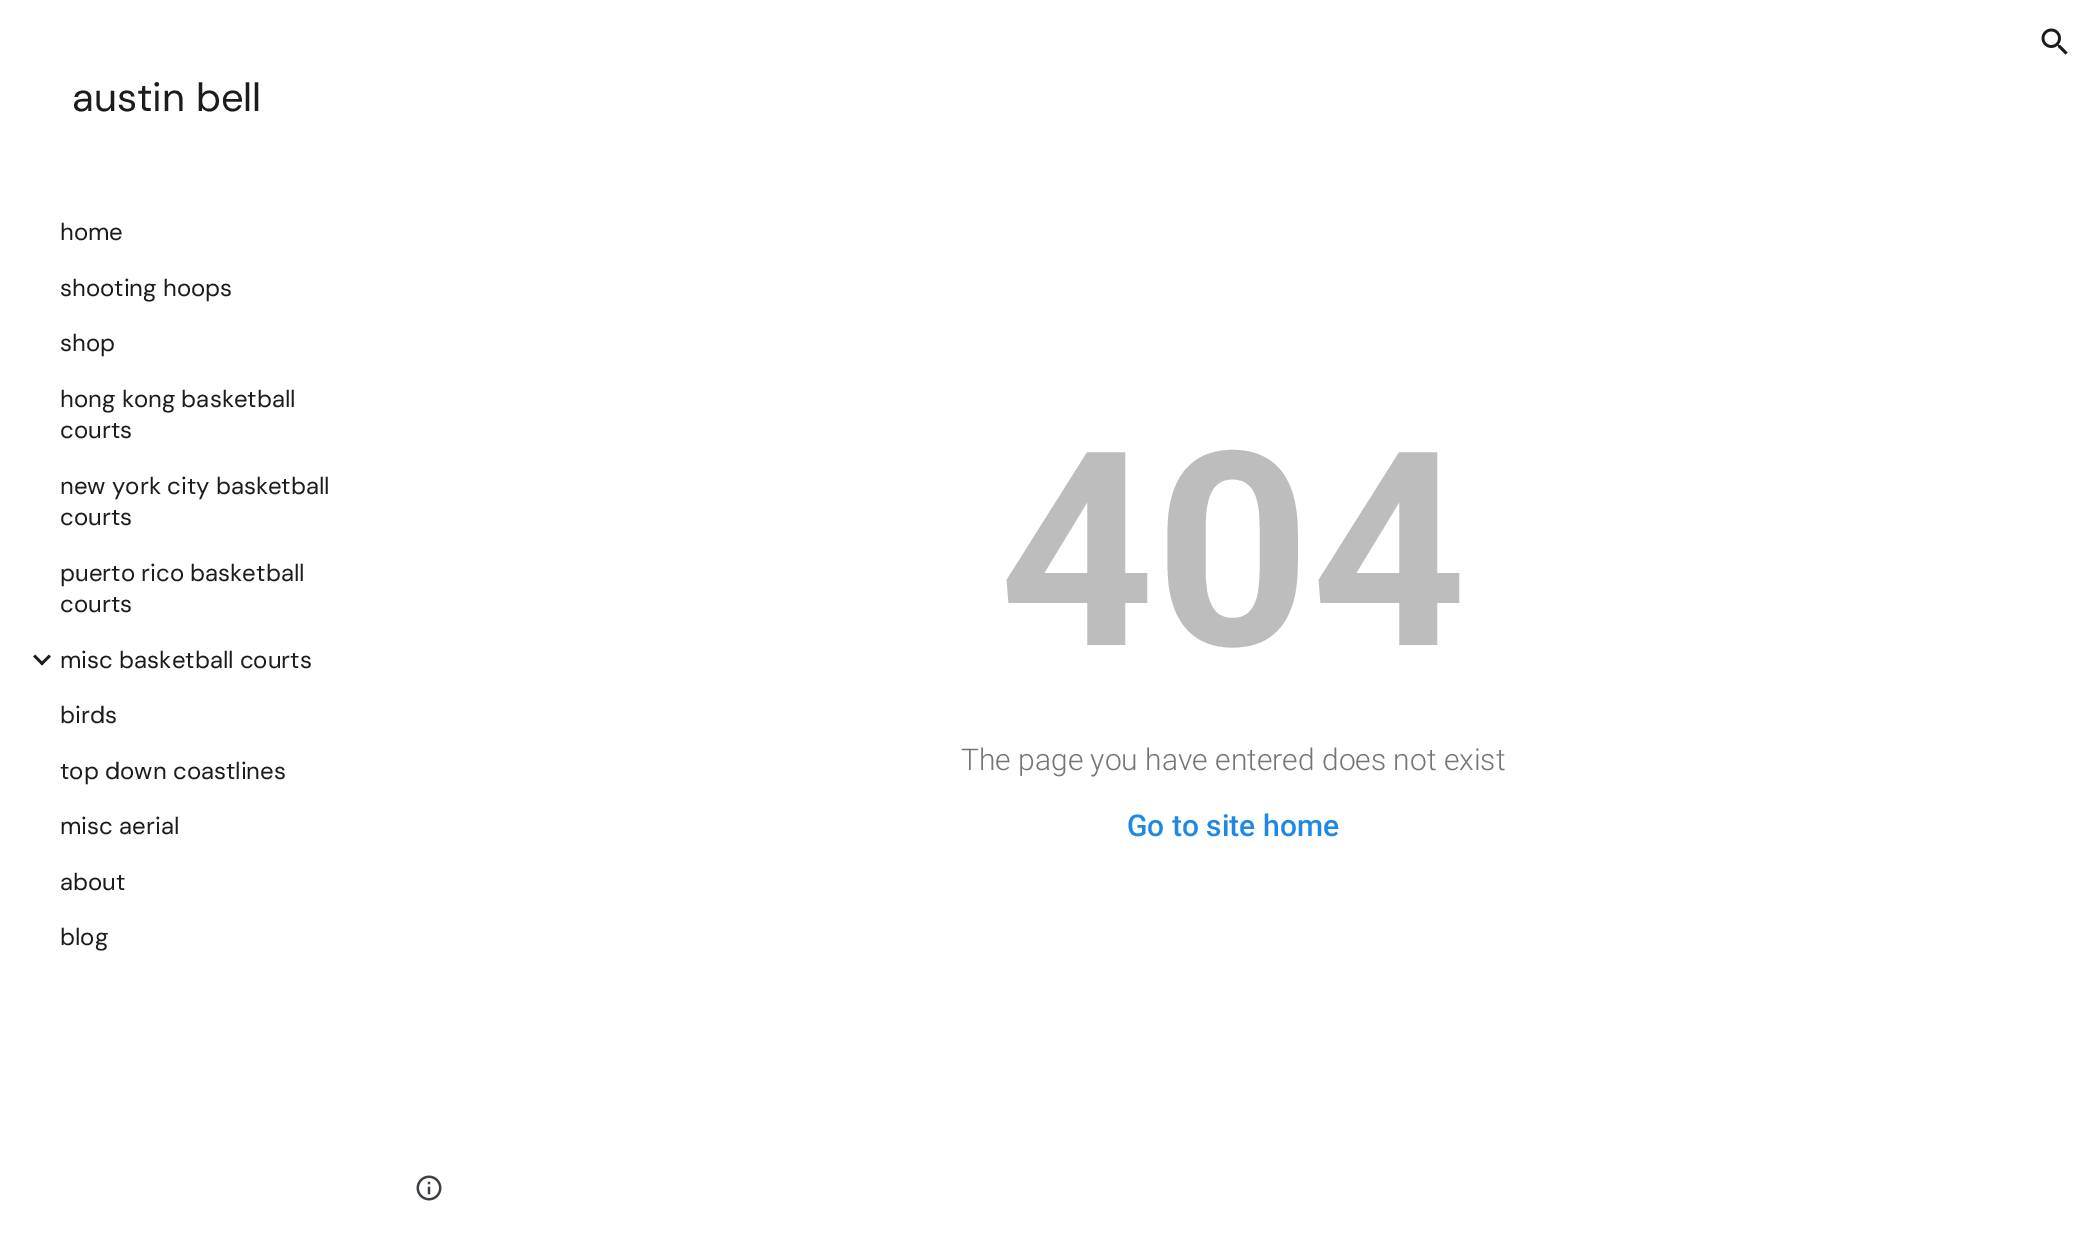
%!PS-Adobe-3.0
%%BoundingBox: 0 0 2091 1239
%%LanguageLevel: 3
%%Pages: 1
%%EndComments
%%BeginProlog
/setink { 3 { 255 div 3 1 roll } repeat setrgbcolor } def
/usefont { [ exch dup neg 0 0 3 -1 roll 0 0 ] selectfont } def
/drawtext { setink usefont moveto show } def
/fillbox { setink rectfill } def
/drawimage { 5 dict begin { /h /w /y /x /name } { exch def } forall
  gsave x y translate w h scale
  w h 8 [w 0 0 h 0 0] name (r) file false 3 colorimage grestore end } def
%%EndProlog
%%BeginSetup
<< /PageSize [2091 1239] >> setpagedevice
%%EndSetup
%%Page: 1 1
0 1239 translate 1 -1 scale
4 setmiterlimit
0 0 2091 1239 255 255 255 fillbox
(assets/img1.rgb) 2041 28 27 27 drawimage
(austin bell) 72 111 /DMSans-Regular 40 28 28 28 drawtext
(home) 60 240 /DMSans-Regular 24 28 28 28 drawtext
(shooting hoops) 60 296 /DMSans-Regular 24 28 28 28 drawtext
(shop) 60 351 /DMSans-Regular 24 28 28 28 drawtext
(hong kong basketball) 60 407 /DMSans-Regular 24 28 28 28 drawtext
(courts) 60 438 /DMSans-Regular 24 28 28 28 drawtext
(new york city basketball) 60 494 /DMSans-Regular 24 28 28 28 drawtext
(courts) 60 525 /DMSans-Regular 24 28 28 28 drawtext
(puerto rico basketball) 60 581 /DMSans-Regular 24 28 28 28 drawtext
(courts) 60 612 /DMSans-Regular 24 28 28 28 drawtext
(assets/img2.rgb) 33 654 18 12 drawimage
(misc basketball courts) 60 668 /DMSans-Regular 24 28 28 28 drawtext
(birds) 60 723 /DMSans-Regular 24 28 28 28 drawtext
(top down coastlines) 60 779 /DMSans-Regular 24 28 28 28 drawtext
(misc aerial) 60 834 /DMSans-Regular 24 28 28 28 drawtext
(about) 60 890 /DMSans-Regular 24 28 28 28 drawtext
(blog) 60 945 /DMSans-Regular 24 28 28 28 drawtext
(404) 999 645 /Roboto-Bold 272 189 189 189 drawtext
(The page you have entered does not exist) 961 770 /Roboto-Light 30 117 117 117 drawtext
(Go to site home) 1127 836 /Roboto-Medium 30 30 136 229 drawtext
(assets/img3.rgb) 416 1175 26 26 drawimage
showpage
%%EOF
